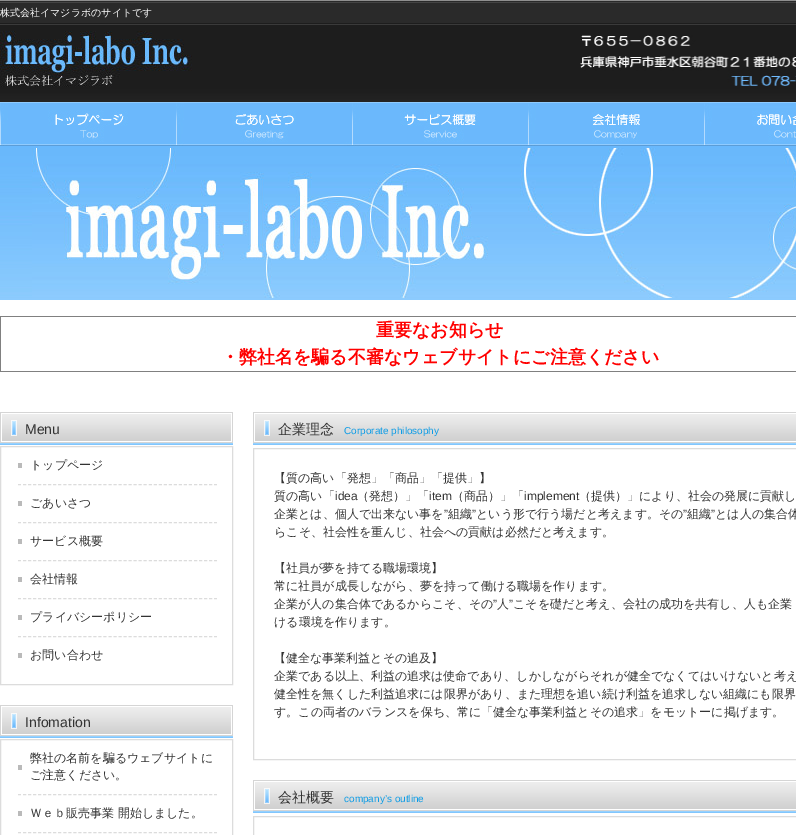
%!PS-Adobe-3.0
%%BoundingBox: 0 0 796 835
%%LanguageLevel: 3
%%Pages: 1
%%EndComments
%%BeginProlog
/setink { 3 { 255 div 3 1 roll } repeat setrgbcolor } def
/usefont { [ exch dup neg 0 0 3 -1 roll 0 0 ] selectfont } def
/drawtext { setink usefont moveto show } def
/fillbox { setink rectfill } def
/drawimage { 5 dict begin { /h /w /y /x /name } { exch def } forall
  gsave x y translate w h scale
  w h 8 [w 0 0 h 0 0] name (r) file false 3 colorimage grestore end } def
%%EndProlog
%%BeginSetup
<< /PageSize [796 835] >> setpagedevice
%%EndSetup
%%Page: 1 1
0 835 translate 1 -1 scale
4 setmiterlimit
0 0 796 835 255 255 255 fillbox
(assets/img1.rgb) 0 0 796 300 drawimage
(株式会社イマジラボのサイトです) 0 16 /WenQuanYiZenHei-Medium 10 255 255 255 drawtext
(assets/img2.rgb) 0 31 192 56 drawimage
(assets/img3.rgb) 580 35 216 51 drawimage
(assets/img4.rgb) 0 102 176 44 drawimage
(assets/img5.rgb) 176 102 176 44 drawimage
(assets/img6.rgb) 352 102 176 45 drawimage
(assets/img7.rgb) 528 102 176 44 drawimage
(assets/img8.rgb) 704 102 92 44 drawimage
(assets/img9.rgb) 32 148 764 150 drawimage
0 316 796 1 128 128 128 fillbox
0 371 796 1 128 128 128 fillbox
0 316 1 56 128 128 128 fillbox
(重要なお知らせ) 376 336 /WenQuanYiZenHei-Bold 18 255 0 0 drawtext
(・弊社名を騙る不審なウェブサイトにご注意ください) 221 363 /WenQuanYiZenHei-Bold 18 255 0 0 drawtext
(assets/img10.rgb) 0 412 233 33 drawimage
(Menu) 25 434 /LiberationSans-Regular 14 51 51 51 drawtext
220 220 220 setink
0.5 446.5 232 238 rectstroke
[3 2.03] 0 setdash
18 484.5 moveto 217 484.5 lineto stroke
18 463 4 5 186 186 186 fillbox
(トップページ) 30 469 /WenQuanYiZenHei-Medium 12 51 51 51 drawtext
220 220 220 setink
18 522.5 moveto 217 522.5 lineto stroke
18 501 4 5 186 186 186 fillbox
(ごあいさつ) 30 507 /WenQuanYiZenHei-Medium 12 51 51 51 drawtext
220 220 220 setink
18 560.5 moveto 217 560.5 lineto stroke
18 539 4 5 186 186 186 fillbox
(サービス概要) 30 545 /WenQuanYiZenHei-Medium 12 51 51 51 drawtext
220 220 220 setink
18 598.5 moveto 217 598.5 lineto stroke
18 577 4 5 186 186 186 fillbox
(会社情報) 30 583 /WenQuanYiZenHei-Medium 12 51 51 51 drawtext
220 220 220 setink
18 636.5 moveto 217 636.5 lineto stroke
18 615 4 5 186 186 186 fillbox
(プライバシーポリシー) 30 621 /WenQuanYiZenHei-Medium 12 51 51 51 drawtext
18 653 4 5 186 186 186 fillbox
(お問い合わせ) 30 659 /WenQuanYiZenHei-Medium 12 51 51 51 drawtext
(assets/img10.rgb) 0 705 233 33 drawimage
(Infomation) 25 727 /LiberationSans-Regular 14 51 51 51 drawtext
220 220 220 setink
[] 0 setdash
0.5 739.5 232 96 rectstroke
[3 2.03] 0 setdash
18 794.5 moveto 217 794.5 lineto stroke
18 765 4 5 186 186 186 fillbox
(弊社の名前を騙るウェブサイトに) 30 762 /WenQuanYiZenHei-Medium 12 51 51 51 drawtext
(ご注意ください。) 30 779 /WenQuanYiZenHei-Medium 12 51 51 51 drawtext
220 220 220 setink
18 832.5 moveto 217 832.5 lineto stroke
18 811 4 5 186 186 186 fillbox
(Ｗｅｂ販売事業 開始しました。) 30 817 /WenQuanYiZenHei-Medium 12 51 51 51 drawtext
(assets/img11.rgb) 253 412 543 33 drawimage
(企業理念) 278 434 /WenQuanYiZenHei-Medium 14 51 51 51 drawtext
(Corporate philosophy) 344 434 /LiberationSans-Regular 10 12 156 230 drawtext
220 220 220 setink
[] 0 setdash
253.5 448.5 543 311 rectstroke
(【質の高い「発想」「商品」「提供」】) 274 482 /WenQuanYiZenHei-Medium 12 51 51 51 drawtext
(質の高い「) 274 500 /WenQuanYiZenHei-Medium 12 51 51 51 drawtext
(idea) 335 500 /LiberationSans-Regular 12 51 51 51 drawtext
(（発想）」「) 357 500 /WenQuanYiZenHei-Medium 12 51 51 51 drawtext
(item) 429 500 /LiberationSans-Regular 12 51 51 51 drawtext
(（商品）」「) 452 500 /WenQuanYiZenHei-Medium 12 51 51 51 drawtext
(implement) 524 500 /LiberationSans-Regular 12 51 51 51 drawtext
(（提供）」により、社会の発展に貢献し) 579 500 /WenQuanYiZenHei-Medium 12 51 51 51 drawtext
(企業とは、個人で出来ない事を) 274 518 /WenQuanYiZenHei-Medium 12 51 51 51 drawtext
(”) 444 518 /LiberationSans-Regular 12 51 51 51 drawtext
(組織) 448 518 /WenQuanYiZenHei-Medium 12 51 51 51 drawtext
(”) 472 518 /LiberationSans-Regular 12 51 51 51 drawtext
(という形で行う場だと考えます。その) 476 518 /WenQuanYiZenHei-Medium 12 51 51 51 drawtext
(”) 683 518 /LiberationSans-Regular 12 51 51 51 drawtext
(組織) 687 518 /WenQuanYiZenHei-Medium 12 51 51 51 drawtext
(”) 711 518 /LiberationSans-Regular 12 51 51 51 drawtext
(とは人の集合体) 715 518 /WenQuanYiZenHei-Medium 12 51 51 51 drawtext
(らこそ、社会性を重んじ、社会への貢献は必然だと考えます。) 274 536 /WenQuanYiZenHei-Medium 12 51 51 51 drawtext
(【社員が夢を持てる職場環境】) 274 572 /WenQuanYiZenHei-Medium 12 51 51 51 drawtext
(常に社員が成長しながら、夢を持って働ける職場を作ります。) 274 590 /WenQuanYiZenHei-Medium 12 51 51 51 drawtext
(企業が人の集合体であるからこそ、その) 274 608 /WenQuanYiZenHei-Medium 12 51 51 51 drawtext
(”) 493 608 /LiberationSans-Regular 12 51 51 51 drawtext
(人) 497 608 /WenQuanYiZenHei-Medium 12 51 51 51 drawtext
(”) 509 608 /LiberationSans-Regular 12 51 51 51 drawtext
(こそを礎だと考え、会社の成功を共有し、人も企業) 513 608 /WenQuanYiZenHei-Medium 12 51 51 51 drawtext
(ける環境を作ります。) 274 626 /WenQuanYiZenHei-Medium 12 51 51 51 drawtext
(【健全な事業利益とその追及】) 274 662 /WenQuanYiZenHei-Medium 12 51 51 51 drawtext
(企業である以上、利益の追求は使命であり、しかしながらそれが健全でなくてはいけないと考え) 274 680 /WenQuanYiZenHei-Medium 12 51 51 51 drawtext
(健全性を無くした利益追求には限界があり、また理想を追い続け利益を追求しない組織にも限界) 274 698 /WenQuanYiZenHei-Medium 12 51 51 51 drawtext
(す。この両者のバランスを保ち、常に「健全な事業利益とその追求」をモットーに掲げます。) 274 716 /WenQuanYiZenHei-Medium 12 51 51 51 drawtext
(assets/img11.rgb) 253 780 543 33 drawimage
(会社概要) 278 802 /WenQuanYiZenHei-Medium 14 51 51 51 drawtext
(company’s outline) 344 802 /LiberationSans-Regular 10 12 156 230 drawtext
220 220 220 setink
253.5 816.5 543 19 rectstroke
showpage
%%EOF
